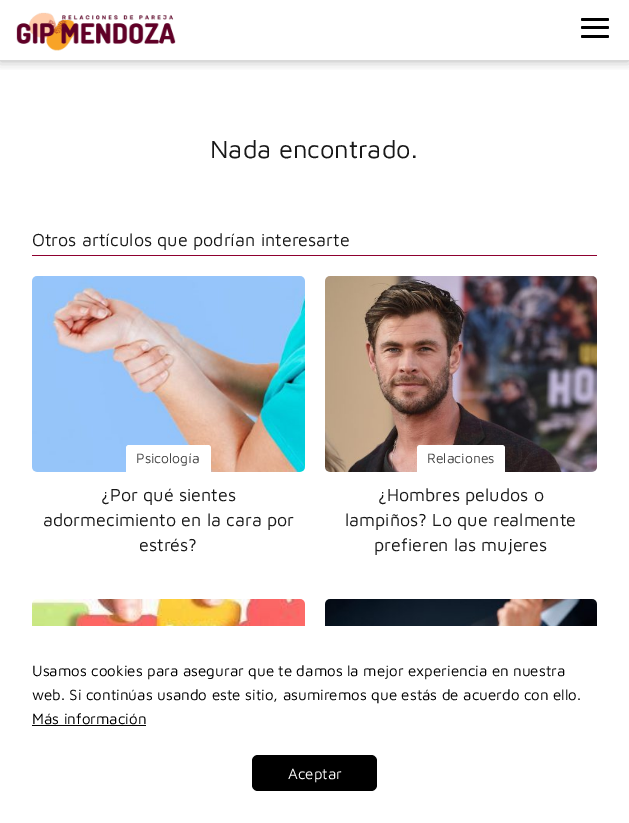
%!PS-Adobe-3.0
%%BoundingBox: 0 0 629 823
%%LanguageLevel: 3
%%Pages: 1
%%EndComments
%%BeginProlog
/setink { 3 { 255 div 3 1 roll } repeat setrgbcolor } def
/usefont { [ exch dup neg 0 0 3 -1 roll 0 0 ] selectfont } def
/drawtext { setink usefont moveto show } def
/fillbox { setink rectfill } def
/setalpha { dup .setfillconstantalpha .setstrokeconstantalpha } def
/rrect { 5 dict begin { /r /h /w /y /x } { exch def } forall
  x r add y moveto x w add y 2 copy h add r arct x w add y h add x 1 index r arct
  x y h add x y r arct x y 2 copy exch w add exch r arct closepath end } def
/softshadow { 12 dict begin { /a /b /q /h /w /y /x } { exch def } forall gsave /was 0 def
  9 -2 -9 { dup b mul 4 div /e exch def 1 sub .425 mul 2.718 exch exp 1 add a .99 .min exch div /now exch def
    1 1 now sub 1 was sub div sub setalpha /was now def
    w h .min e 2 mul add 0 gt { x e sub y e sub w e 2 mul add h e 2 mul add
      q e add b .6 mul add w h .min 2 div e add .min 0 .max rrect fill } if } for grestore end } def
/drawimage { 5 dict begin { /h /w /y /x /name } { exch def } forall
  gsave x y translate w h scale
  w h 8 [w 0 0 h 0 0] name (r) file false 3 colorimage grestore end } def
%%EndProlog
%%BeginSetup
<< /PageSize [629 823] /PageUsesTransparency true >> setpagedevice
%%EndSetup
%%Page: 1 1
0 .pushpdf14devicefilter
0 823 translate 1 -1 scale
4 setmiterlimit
0 0 629 823 255 255 255 fillbox
gsave
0 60 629 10 rectclip
0 0 0 setink
0 1 629 60 0 6 0.3 softshadow
grestore
(assets/img1.rgb) 16 12 160 39 drawimage
0 0 0 setink
581 18 28 3 1.5 rrect fill
581 26 28 3 1.5 rrect fill
581 35 28 3 1.5 rrect fill
(Nada encontrado.) 210 158 /MavenPro-Regular 25.5 24 24 24 drawtext
32 255 565 1 142 0 47 fillbox
(Otros artículos que podrían interesarte) 32 246 /MavenPro-Regular 18 24 24 24 drawtext
(assets/img2.rgb) 32 276 273 196 drawimage
255 255 255 setink
129 445 moveto 208 445 lineto 209.5 445 211 446.5 211 448 curveto 211 472 lineto 126 472 lineto 126 448 lineto 126 446.5 127.5 445 129 445 curveto closepath fill
(Psicología) 136 463 /MavenPro-Regular 14 68 68 68 drawtext
(¿Por qué sientes) 101 501 /MavenPro-Regular 18 24 24 24 drawtext
(adormecimiento en la cara por) 43 526 /MavenPro-Regular 18 24 24 24 drawtext
(estrés?) 139 551 /MavenPro-Regular 18 24 24 24 drawtext
(assets/img3.rgb) 325 276 272 196 drawimage
255 255 255 setink
420 445 moveto 502 445 lineto 503.5 445 505 446.5 505 448 curveto 505 472 lineto 417 472 lineto 417 448 lineto 417 446.5 418.5 445 420 445 curveto closepath fill
(Relaciones) 427 463 /MavenPro-Regular 14 68 68 68 drawtext
(¿Hombres peludos o) 378 501 /MavenPro-Regular 18 24 24 24 drawtext
(lampiños? Lo que realmente) 345 526 /MavenPro-Regular 18 24 24 24 drawtext
(prefieren las mujeres) 374 551 /MavenPro-Regular 18 24 24 24 drawtext
(assets/img4.rgb) 32 599 273 27 drawimage
(assets/img5.rgb) 325 599 272 27 drawimage
(Usamos cookies para asegurar que te damos la mejor experiencia en nuestra) 32 676 /MavenPro-Regular 15.2 0 0 0 drawtext
(web. Si continúas usando este sitio, asumiremos que estás de acuerdo con ello.) 32 700 /MavenPro-Regular 15.2 0 0 0 drawtext
(Más información) 32 724 /MavenPro-Regular 15.2 0 0 0 drawtext
32 725 114 1 0 0 0 fillbox
252 755 125 36 6 rrect fill
(Aceptar) 288 779 /MavenPro-Regular 15.2 255 255 255 drawtext
.poppdf14devicefilter showpage
%%EOF
